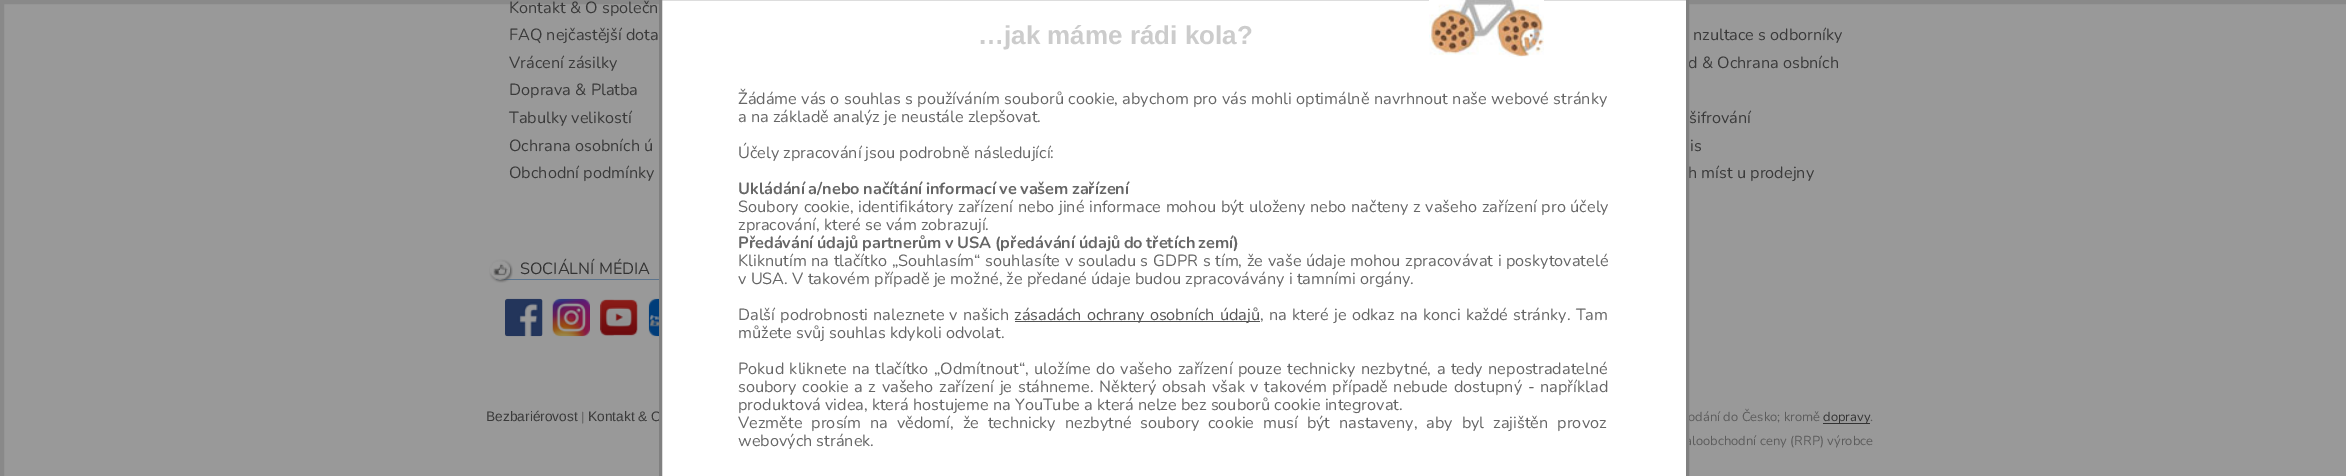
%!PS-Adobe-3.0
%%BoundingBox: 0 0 2346 476
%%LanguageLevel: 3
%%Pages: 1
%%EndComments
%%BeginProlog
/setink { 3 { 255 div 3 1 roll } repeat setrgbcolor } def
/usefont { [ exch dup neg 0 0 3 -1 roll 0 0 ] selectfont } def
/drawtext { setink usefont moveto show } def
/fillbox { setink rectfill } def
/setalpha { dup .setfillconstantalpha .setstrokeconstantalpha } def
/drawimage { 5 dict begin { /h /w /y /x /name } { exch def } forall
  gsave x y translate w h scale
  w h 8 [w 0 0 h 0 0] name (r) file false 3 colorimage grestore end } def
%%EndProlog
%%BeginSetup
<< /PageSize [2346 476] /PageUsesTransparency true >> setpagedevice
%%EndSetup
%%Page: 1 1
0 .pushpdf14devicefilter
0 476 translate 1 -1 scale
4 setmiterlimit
0 0 2346 476 153 153 153 fillbox
(Kontakt & O společn) 509 13 /Nunito-Regular 16.25 58 58 58 drawtext
(FAQ nejčastější dota) 509 40 /Nunito-Regular 16.25 58 58 58 drawtext
(Vrácení zásilky) 509 68 /Nunito-Regular 16.25 58 58 58 drawtext
(Doprava & Platba) 509 95 /Nunito-Regular 16.25 58 58 58 drawtext
(Tabulky velikostí) 509 123 /Nunito-Regular 16.25 58 58 58 drawtext
(Ochrana osobních ú) 509 151 /Nunito-Regular 16.25 58 58 58 drawtext
(Obchodní podmínky) 509 178 /Nunito-Regular 16.25 58 58 58 drawtext
(nzultace s odborníky) 1693 40 /Nunito-Regular 16.25 58 58 58 drawtext
(d & Ochrana osbních) 1688 68 /Nunito-Regular 16.25 58 58 58 drawtext
(šifrování) 1689 123 /Nunito-Regular 16.25 58 58 58 drawtext
(is) 1690 151 /Nunito-Regular 16.25 58 58 58 drawtext
(h míst u prodejny) 1688 178 /Nunito-Regular 16.25 58 58 58 drawtext
496 279 163 1 92 116 141 fillbox
(assets/img1.rgb) 489 259 24 24 drawimage
(SOCIÁLNÍ MÉDIA) 520 274 /Nunito-Regular 16.25 51 51 51 drawtext
(assets/img2.rgb) 505 298 38 39 drawimage
(assets/img3.rgb) 552 298 38 39 drawimage
(assets/img4.rgb) 600 299 38 37 drawimage
(assets/img5.rgb) 648 298 11 39 drawimage
(Bezbariérovost) 486 421 /LiberationSans-Regular 13.75 58 58 58 drawtext
(|) 581 421 /Nunito-Regular 13 92 92 92 drawtext
(Kontakt & O) 588 421 /LiberationSans-Regular 13.75 58 58 58 drawtext
(odání do Česko; kromě) 1688 421 /Nunito-Regular 13 92 92 92 drawtext
1823 423 47 1 51 51 51 fillbox
(dopravy) 1823 421 /Nunito-Regular 13 51 51 51 drawtext
(.) 1870 421 /Nunito-Regular 13 92 92 92 drawtext
(aloobchodní ceny \(RRP\) výrobce) 1685 445 /Nunito-Regular 13 92 92 92 drawtext
0.1 setalpha
0 0 0 setink
4 setlinewidth
2 2 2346 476 rectstroke
1 setalpha
255 255 255 setink
660.5 -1.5 moveto 1687.5 -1.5 lineto 1687.5 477.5 lineto 660.5 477.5 lineto closepath gsave fill grestore
128 128 128 setink
3 setlinewidth
stroke
(…jak máme rádi kola?) 978 44 /LiberationSans-Bold 26 204 204 204 drawtext
(assets/img6.rgb) 1429 0 115 57 drawimage
/Nunito-Regular 16.25 usefont
102 102 102 setink
738 104 moveto 0.25 0 32 (Žádáme vás o souhlas s používáním souborů cookie, abychom pro vás mohli optimálně navrhnout naše webové stránky) widthshow
(a na základě analýz je neustále zlepšovat.) 738 122 /Nunito-Regular 16.25 102 102 102 drawtext
(Účely zpracování jsou podrobně následující:) 738 158 /Nunito-Regular 16.25 102 102 102 drawtext
/Nunito-Bold 16.25 usefont
738 194 moveto -1 0 32 (Ukládání a/nebo načítání informací ve vašem zařízení) widthshow
/Nunito-Regular 16.25 usefont
738 212 moveto 0.5 0 32 (Soubory cookie, identifikátory zařízení nebo jiné informace mohou být uloženy nebo načteny z vašeho zařízení pro účely) widthshow
(zpracování, které se vám zobrazují.) 738 230 /Nunito-Regular 16.25 102 102 102 drawtext
/Nunito-Bold 16.25 usefont
738 248 moveto -1 0 32 (Předávání údajů partnerům v USA \(předávání údajů do třetích zemí\)) widthshow
/Nunito-Regular 16.25 usefont
738 266 moveto 0.5 0 32 (Kliknutím na tlačítko „Souhlasím“ souhlasíte v souladu s GDPR s tím, že vaše údaje mohou zpracovávat i poskytovatelé) widthshow
(v USA. V takovém případě je možné, že předané údaje budou zpracovávány i tamními orgány.) 738 284 /Nunito-Regular 16.25 102 102 102 drawtext
738 320 moveto 1 0 32 (Další podrobnosti naleznete v našich) widthshow
1015 321 245 1 85 85 85 fillbox
1014 320 moveto 1 0 32 (zásadách ochrany osobních údajů) widthshow
102 102 102 setink
1260 320 moveto 1 0 32 (, na které je odkaz na konci každé stránky. Tam) widthshow
(můžete svůj souhlas kdykoli odvolat.) 738 338 /Nunito-Regular 16.25 102 102 102 drawtext
738 374 moveto 1.25 0 32 (Pokud kliknete na tlačítko „Odmítnout“, uložíme do vašeho zařízení pouze technicky nezbytné, a tedy nepostradatelné) widthshow
738 392 moveto 1.5 0 32 (soubory cookie a z vašeho zařízení je stáhneme. Některý obsah však v takovém případě nebude dostupný - například) widthshow
(produktová videa, která hostujeme na YouTube a která nelze bez souborů cookie integrovat.) 738 410 /Nunito-Regular 16.25 102 102 102 drawtext
738 428 moveto 4.75 0 32 (Vezměte prosím na vědomí, že technicky nezbytné soubory cookie musí být nastaveny, aby byl zajištěn provoz) widthshow
(webových stránek.) 738 446 /Nunito-Regular 16.25 102 102 102 drawtext
.poppdf14devicefilter showpage
%%EOF
